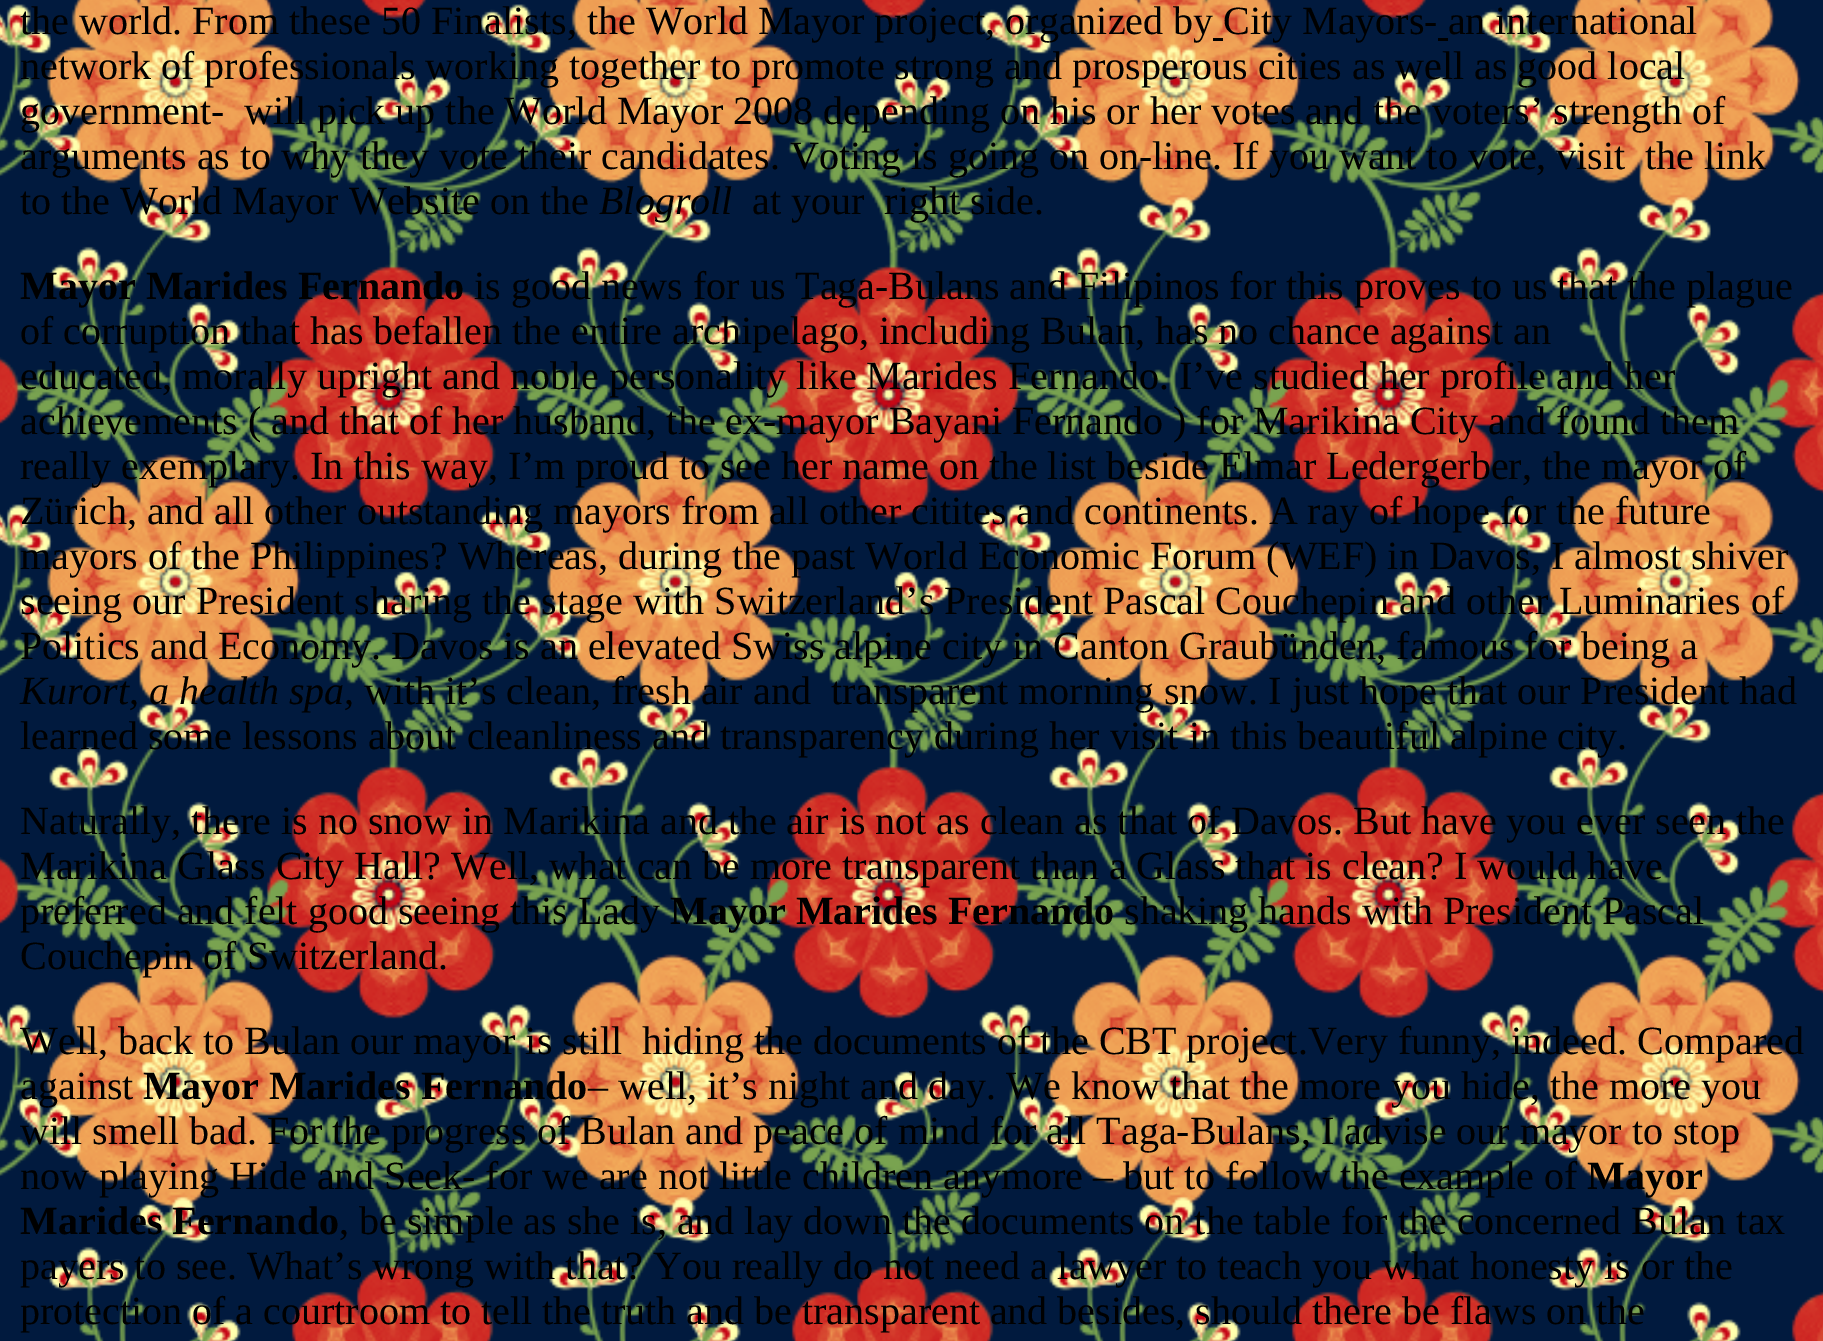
%!PS-Adobe-3.0
%%BoundingBox: 0 0 1823 1341
%%LanguageLevel: 3
%%Pages: 1
%%EndComments
%%BeginProlog
/setink { 3 { 255 div 3 1 roll } repeat setrgbcolor } def
/usefont { [ exch dup neg 0 0 3 -1 roll 0 0 ] selectfont } def
/drawtext { setink usefont moveto show } def
/fillbox { setink rectfill } def
/drawimage { 5 dict begin { /h /w /y /x /name } { exch def } forall
  gsave x y translate w h scale
  w h 8 [w 0 0 h 0 0] name (r) file false 3 colorimage grestore end } def
%%EndProlog
%%BeginSetup
<< /PageSize [1823 1341] >> setpagedevice
%%EndSetup
%%Page: 1 1
0 1341 translate 1 -1 scale
4 setmiterlimit
0 0 1823 1341 255 255 255 fillbox
(assets/img1.rgb) 0 0 1823 1341 drawimage
(the world. From these 50 Finalists, the World Mayor project, organized by City Mayors- an international) 20 34 /LiberationSerif-Regular 40 0 0 0 drawtext
1213 38 10 3 0 0 0 fillbox
1438 38 10 3 0 0 0 fillbox
(network of professionals working together to promote strong and prosperous cities as well as good local) 20 79 /LiberationSerif-Regular 40 0 0 0 drawtext
(government-  will pick up the World Mayor 2008 depending on his or her votes and the voters’ strength of) 20 124 /LiberationSerif-Regular 40 0 0 0 drawtext
(arguments as to why they vote their candidates. Voting is going on on-line. If you want to vote, visit  the link) 20 169 /LiberationSerif-Regular 40 0 0 0 drawtext
(to the World Mayor Website on the) 20 214 /LiberationSerif-Regular 40 0 0 0 drawtext
(Blogroll) 599 214 /LiberationSerif-Italic 40 0 0 0 drawtext
(at your  right side.) 752 214 /LiberationSerif-Regular 40 0 0 0 drawtext
(Mayor Marides Fernando) 20 299 /LiberationSerif-Bold 40 0 0 0 drawtext
(is good news for us Taga-Bulans and Filipinos for this proves to us that the plague) 474 299 /LiberationSerif-Regular 40 0 0 0 drawtext
(of corruption that has befallen the entire archipelago, including Bulan, has no chance against an) 20 344 /LiberationSerif-Regular 40 0 0 0 drawtext
(educated, morally upright and noble personality like Marides Fernando. I’ve studied her profile and her) 20 389 /LiberationSerif-Regular 40 0 0 0 drawtext
(achievements \( and that of her husband, the ex-mayor Bayani Fernando \) for Marikina City and found them) 20 434 /LiberationSerif-Regular 40 0 0 0 drawtext
(really exemplary. In this way, I’m proud to see her name on the list beside Elmar Ledergerber, the mayor of) 20 479 /LiberationSerif-Regular 40 0 0 0 drawtext
(Zürich, and all other outstanding mayors from all other citites and continents. A ray of hope for the future) 20 524 /LiberationSerif-Regular 40 0 0 0 drawtext
(mayors of the Philippines? Whereas, during the past World Economic Forum \(WEF\) in Davos, I almost shiver) 20 569 /LiberationSerif-Regular 40 0 0 0 drawtext
(seeing our President sharing the stage with Switzerland’s President Pascal Couchepin and other Luminaries of) 20 614 /LiberationSerif-Regular 40 0 0 0 drawtext
(Politics and Economy. Davos is an elevated Swiss alpine city in Canton Graubünden, famous for being a) 20 659 /LiberationSerif-Regular 40 0 0 0 drawtext
(Kurort, a health spa,) 20 704 /LiberationSerif-Italic 40 0 0 0 drawtext
(with it’s clean, fresh air and  transparent morning snow. I just hope that our President had) 364 704 /LiberationSerif-Regular 40 0 0 0 drawtext
(learned some lessons about cleanliness and transparency during her visit in this beautiful alpine city.) 20 749 /LiberationSerif-Regular 40 0 0 0 drawtext
(Naturally, there is no snow in Marikina and the air is not as clean as that of Davos. But have you ever seen the) 20 834 /LiberationSerif-Regular 40 0 0 0 drawtext
(Marikina Glass City Hall? Well, what can be more transparent than a Glass that is clean? I would have) 20 879 /LiberationSerif-Regular 40 0 0 0 drawtext
(preferred and felt good seeing this Lady) 20 924 /LiberationSerif-Regular 40 0 0 0 drawtext
(Mayor Marides Fernando) 670 924 /LiberationSerif-Bold 40 0 0 0 drawtext
(shaking hands with President Pascal) 1124 924 /LiberationSerif-Regular 40 0 0 0 drawtext
(Couchepin of Switzerland.) 20 969 /LiberationSerif-Regular 40 0 0 0 drawtext
(Well, back to Bulan our mayor is still  hiding the documents of the CBT project.Very funny, indeed. Compared) 20 1054 /LiberationSerif-Regular 40 0 0 0 drawtext
(against) 20 1099 /LiberationSerif-Regular 40 0 0 0 drawtext
(Mayor Marides Fernando) 143 1099 /LiberationSerif-Bold 40 0 0 0 drawtext
(– well, it’s night and day. We know that the more you hide, the more you) 588 1099 /LiberationSerif-Regular 40 0 0 0 drawtext
(will smell bad. For the progress of Bulan and peace of mind for all Taga-Bulans, I advise our mayor to stop) 20 1144 /LiberationSerif-Regular 40 0 0 0 drawtext
(now playing Hide and Seek- for we are not little children anymore – but to follow the example of) 20 1189 /LiberationSerif-Regular 40 0 0 0 drawtext
(Mayor) 1587 1189 /LiberationSerif-Bold 40 0 0 0 drawtext
(Marides Fernando) 20 1234 /LiberationSerif-Bold 40 0 0 0 drawtext
(, be simple as she is, and lay down the documents on the table for the concerned Bulan tax) 339 1234 /LiberationSerif-Regular 40 0 0 0 drawtext
(payers to see. What’s wrong with that? You really do not need a lawyer to teach you what honesty is or the) 20 1279 /LiberationSerif-Regular 40 0 0 0 drawtext
(protection of a courtroom to tell the truth and be transparent and besides, should there be flaws on the) 20 1324 /LiberationSerif-Regular 40 0 0 0 drawtext
showpage
%%EOF
